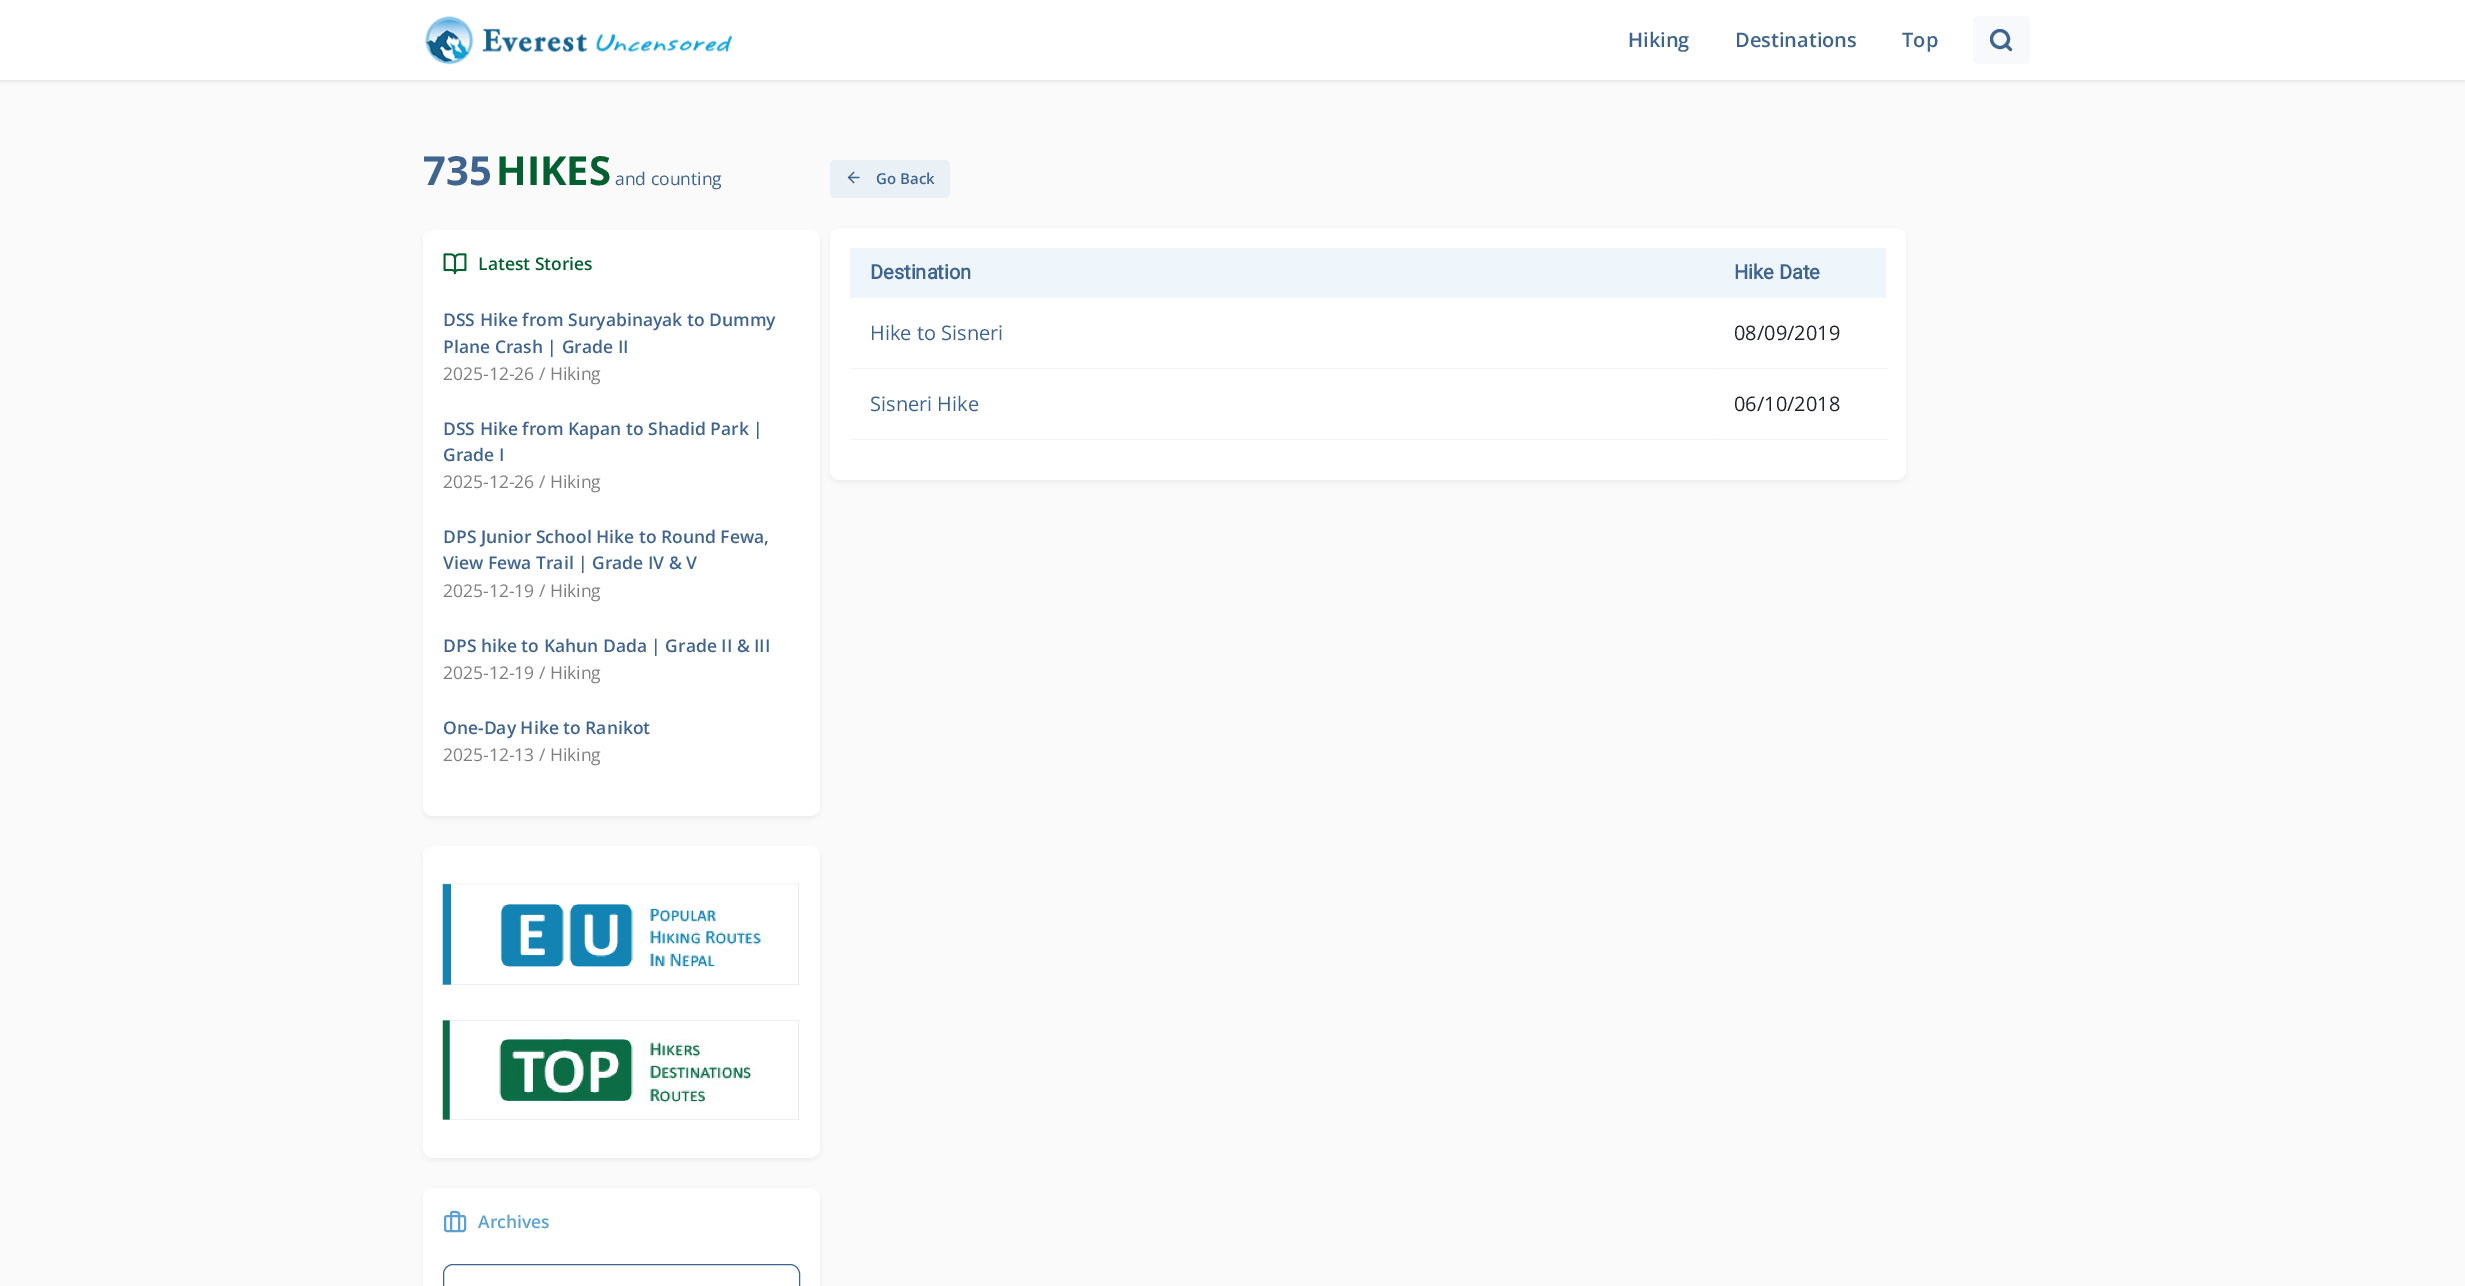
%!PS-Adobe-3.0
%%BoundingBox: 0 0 2465 1286
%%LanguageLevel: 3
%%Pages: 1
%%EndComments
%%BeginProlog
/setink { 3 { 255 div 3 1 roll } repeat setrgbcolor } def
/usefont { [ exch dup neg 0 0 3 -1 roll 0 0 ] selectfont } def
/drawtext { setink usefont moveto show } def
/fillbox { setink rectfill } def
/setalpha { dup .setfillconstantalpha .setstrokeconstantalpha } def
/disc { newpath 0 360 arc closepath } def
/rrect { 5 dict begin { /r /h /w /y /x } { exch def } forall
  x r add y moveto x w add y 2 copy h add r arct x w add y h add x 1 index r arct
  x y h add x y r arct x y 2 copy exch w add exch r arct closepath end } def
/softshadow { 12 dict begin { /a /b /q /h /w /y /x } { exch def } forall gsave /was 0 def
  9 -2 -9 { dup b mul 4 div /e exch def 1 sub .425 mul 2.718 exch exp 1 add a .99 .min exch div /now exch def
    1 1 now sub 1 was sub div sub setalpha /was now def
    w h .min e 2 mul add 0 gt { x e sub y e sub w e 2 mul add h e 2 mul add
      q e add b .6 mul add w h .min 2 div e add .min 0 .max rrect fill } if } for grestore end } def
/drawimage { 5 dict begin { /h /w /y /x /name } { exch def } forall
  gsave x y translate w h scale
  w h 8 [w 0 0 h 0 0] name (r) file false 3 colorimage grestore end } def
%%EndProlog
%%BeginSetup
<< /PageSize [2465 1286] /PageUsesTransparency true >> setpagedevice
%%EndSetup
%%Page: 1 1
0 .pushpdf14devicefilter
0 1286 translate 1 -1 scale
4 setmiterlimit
0 0 2465 1286 250 250 250 fillbox
0 0 0 setink
0 1 2465 80 0 2.5 0.1 softshadow
0 0 2465 80 255 255 255 fillbox
(assets/img1.rgb) 425 16 308 49 drawimage
(Hiking) 1628 47 /OpenSans-SemiBold 20 63 100 142 drawtext
(Destinations) 1735 47 /OpenSans-SemiBold 20 63 100 142 drawtext
(Top) 1902 47 /OpenSans-SemiBold 20 63 100 142 drawtext
248 249 250 setink
1973 16 57 48 5 rrect fill
63 100 142 setink
3.1 setlinewidth
2000 39 8.5 disc stroke
1 setlinecap
1 setlinejoin
2010.5 49.5 moveto 2006 45 lineto 2010.5 49.5 moveto 2006 45 lineto stroke
(735) 423 185 /OpenSans-Bold 40 63 100 142 drawtext
(HIKES) 496 185 /OpenSans-Bold 40 4 96 49 drawtext
(and counting) 615 185 /OpenSans-Regular 17.5 63 100 142 drawtext
0 0 0 setink
423 233 397 586 10 2.5 0.05 softshadow
255 255 255 setink
423 230 397 586 10 rrect fill
(assets/img2.rgb) 443 253 24 22 drawimage
(Latest Stories) 478 270 /OpenSans-SemiBold 17.5 4 96 49 drawtext
(DSS Hike from Suryabinayak to Dummy) 443 326 /OpenSans-SemiBold 17.5 63 100 142 drawtext
(Plane Crash | Grade II) 443 353 /OpenSans-SemiBold 17.5 63 100 142 drawtext
(2025-12-26 / Hiking) 443 380 /OpenSans-Regular 17.5 128 128 128 drawtext
(DSS Hike from Kapan to Shadid Park |) 443 435 /OpenSans-SemiBold 17.5 63 100 142 drawtext
(Grade I) 443 461 /OpenSans-SemiBold 17.5 63 100 142 drawtext
(2025-12-26 / Hiking) 443 488 /OpenSans-Regular 17.5 128 128 128 drawtext
(DPS Junior School Hike to Round Fewa,) 443 543 /OpenSans-SemiBold 17.5 63 100 142 drawtext
(View Fewa Trail | Grade IV & V) 443 569 /OpenSans-SemiBold 17.5 63 100 142 drawtext
(2025-12-19 / Hiking) 443 597 /OpenSans-Regular 17.5 128 128 128 drawtext
(DPS hike to Kahun Dada | Grade II & III) 443 652 /OpenSans-SemiBold 17.5 63 100 142 drawtext
(2025-12-19 / Hiking) 443 679 /OpenSans-Regular 17.5 128 128 128 drawtext
(One-Day Hike to Ranikot) 443 734 /OpenSans-SemiBold 17.5 63 100 142 drawtext
(2025-12-13 / Hiking) 443 761 /OpenSans-Regular 17.5 128 128 128 drawtext
0 0 0 setink
423 849 397 311 10 2.5 0.05 softshadow
255 255 255 setink
423 846 397 312 10 rrect fill
(assets/img3.rgb) 442 883 357 102 drawimage
(assets/img4.rgb) 442 1020 357 100 drawimage
0 0 0 setink
423 1190 397 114 10 2.5 0.05 softshadow
255 255 255 setink
423 1188 397 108 10 rrect fill
92 161 211 setink
2 setlinewidth
0 setlinecap
0 setlinejoin
445 1216 20 15 2 rrect stroke
2.1 setlinewidth
1 setlinecap
1 setlinejoin
459 1230.5 moveto 459 1219.5 lineto 459 1216 460.5 1212 456 1212 curveto 454.5 1212 451.5 1211 451 1213.5 curveto 451 1230.5 lineto stroke
(Archives) 478 1228 /OpenSans-SemiBold 17.5 92 161 211 drawtext
63 100 142 setink
1 setlinewidth
0 setlinecap
0 setlinejoin
443.5 1264.5 356 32 9.5 rrect stroke
234 241 246 setink
830 160 120 38 5 rrect fill
(assets/img5.rgb) 847 171 13 13 drawimage
(Go Back) 876 184 /OpenSans-SemiBold 15 63 100 142 drawtext
0 0 0 setink
830 230 1076 253 10 2.5 0.05 softshadow
255 255 255 setink
830 228 1076 252 10 rrect fill
850 368 1038 1 243 243 243 fillbox
850 439 1038 1 243 243 243 fillbox
850 248 1036 50 239 246 251 fillbox
(Destination) 870 279 /Roboto-Bold 20 63 100 142 drawtext
(Hike Date) 1734 279 /Roboto-Bold 20 63 100 142 drawtext
(Hike to Sisneri) 870 340 /OpenSans-Regular 20 63 100 142 drawtext
1714 368 1 1 235 235 235 fillbox
(08/09/2019) 1734 340 /OpenSans-Regular 20 33 37 41 drawtext
(Sisneri Hike) 870 411 /OpenSans-Regular 20 63 100 142 drawtext
1714 439 1 1 235 235 235 fillbox
(06/10/2018) 1734 411 /OpenSans-Regular 20 33 37 41 drawtext
.poppdf14devicefilter showpage
%%EOF
